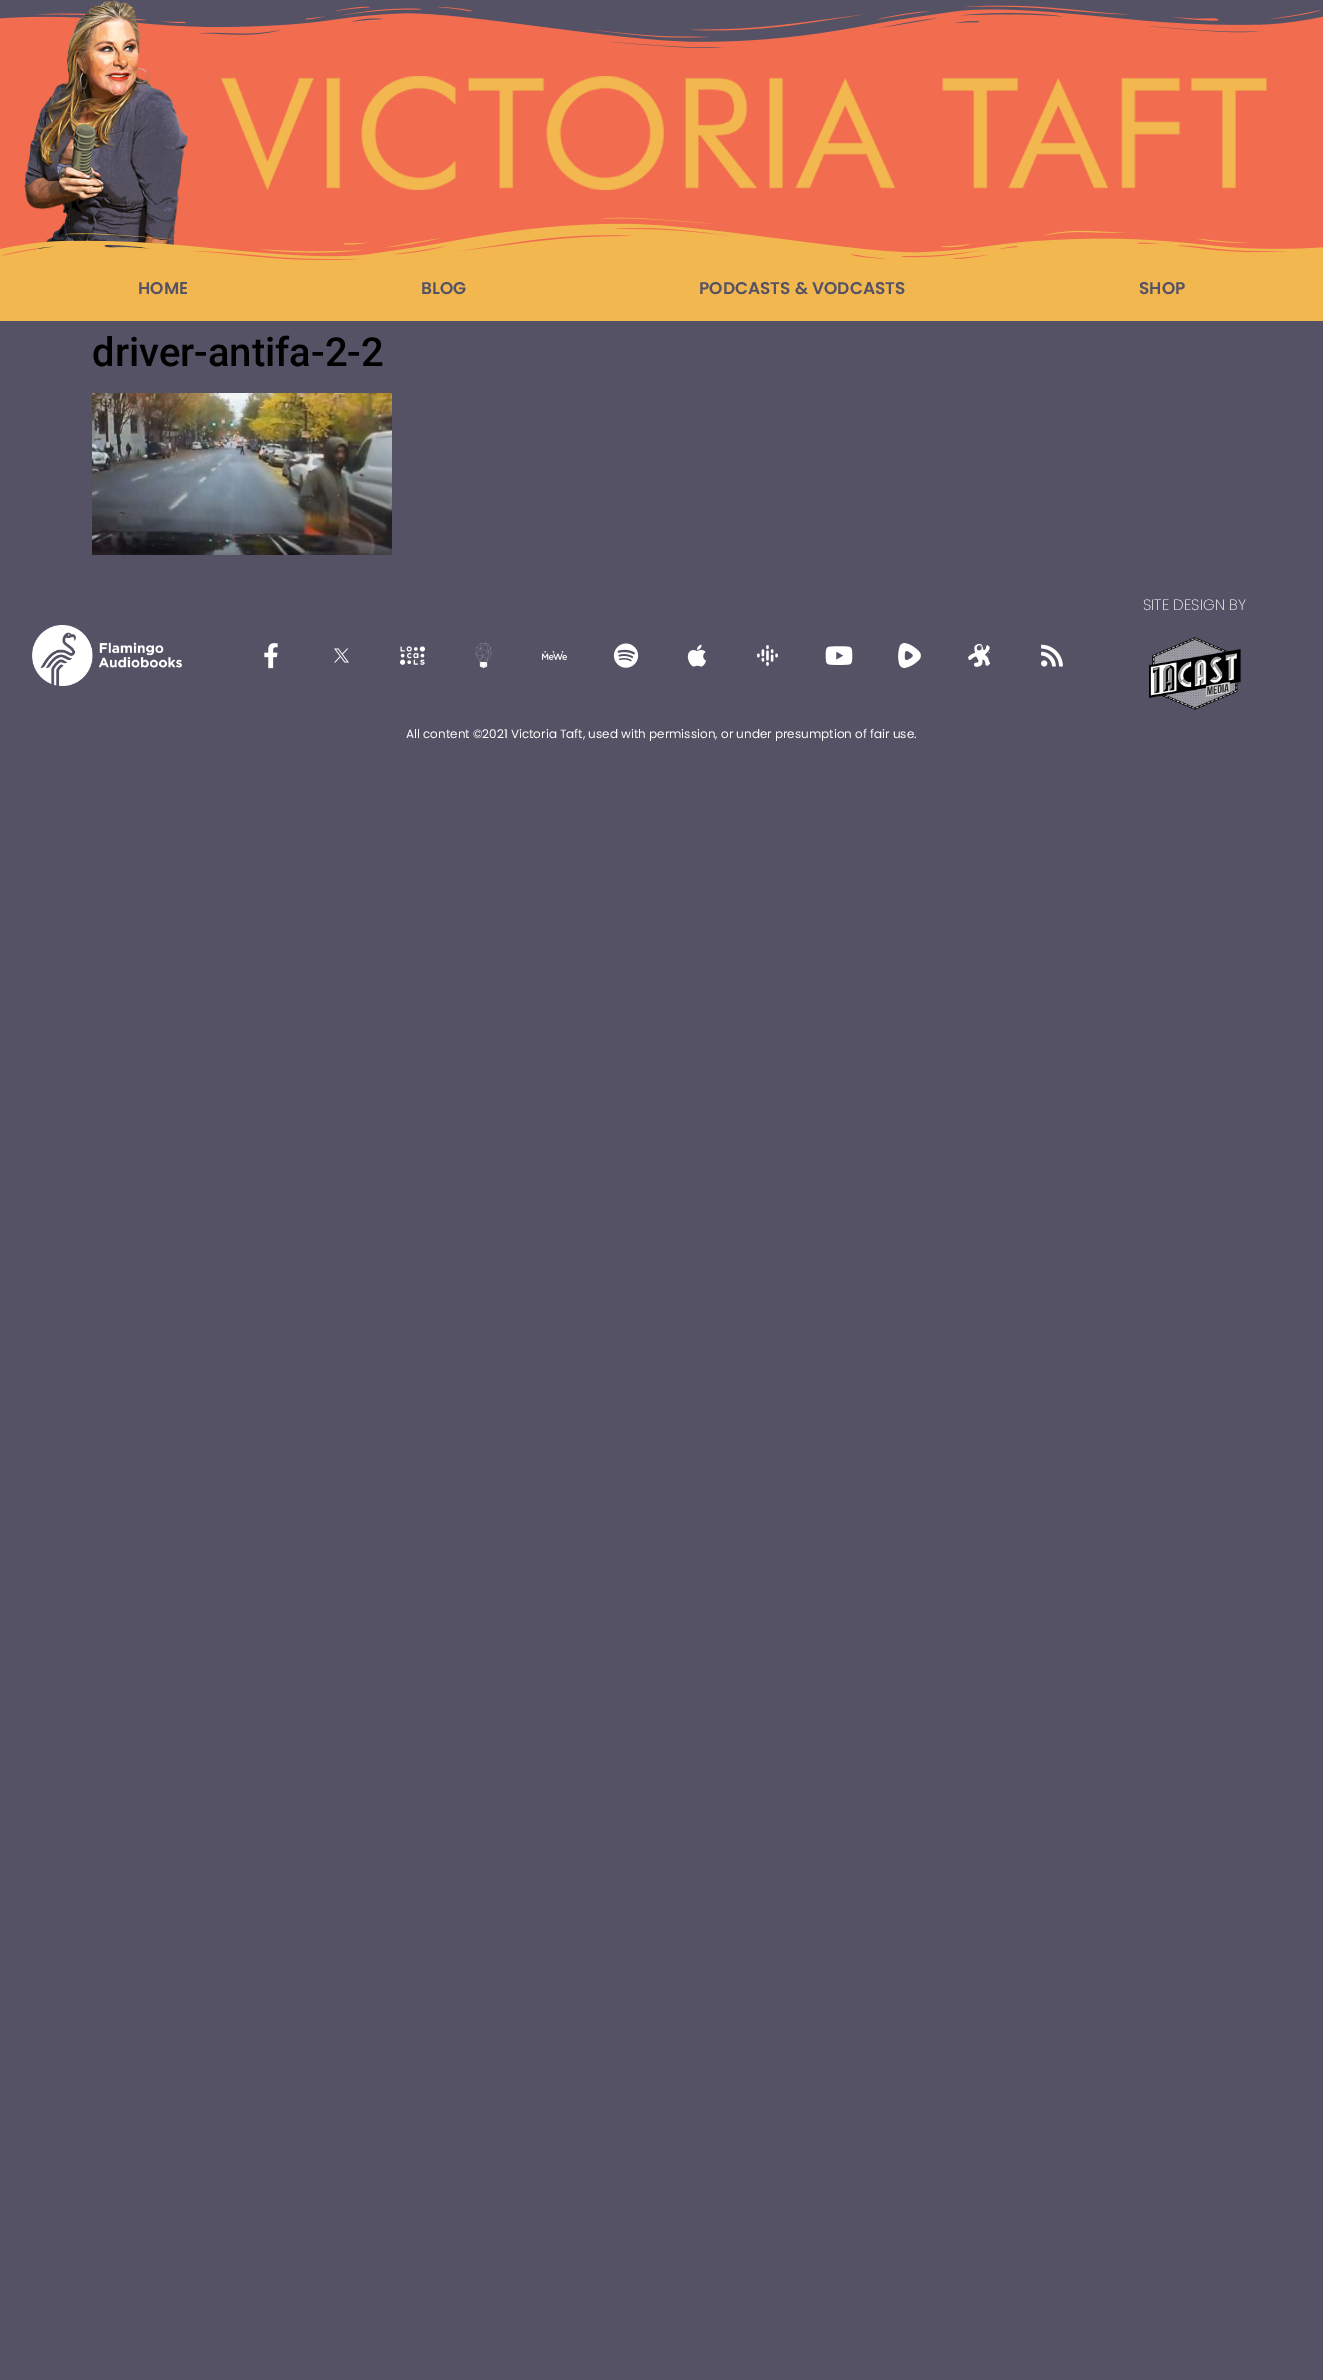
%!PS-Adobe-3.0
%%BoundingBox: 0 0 1323 2380
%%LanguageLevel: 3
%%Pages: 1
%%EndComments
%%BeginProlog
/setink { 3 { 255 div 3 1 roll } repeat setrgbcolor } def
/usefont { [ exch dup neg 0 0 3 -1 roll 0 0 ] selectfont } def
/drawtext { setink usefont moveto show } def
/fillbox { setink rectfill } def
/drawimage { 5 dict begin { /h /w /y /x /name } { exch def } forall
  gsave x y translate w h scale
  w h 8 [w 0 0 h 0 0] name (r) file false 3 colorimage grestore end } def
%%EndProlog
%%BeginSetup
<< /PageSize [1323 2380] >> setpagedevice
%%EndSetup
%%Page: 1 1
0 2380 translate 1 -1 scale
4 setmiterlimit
0 0 1323 2380 85 82 101 fillbox
0 5 1323 255 242 108 79 fillbox
(assets/img1.rgb) 0 0 1323 48 drawimage
(assets/img2.rgb) 24 0 164 250 drawimage
(assets/img3.rgb) 221 76 1046 114 drawimage
(assets/img4.rgb) 0 217 1323 48 drawimage
0 265 1323 56 242 183 79 fillbox
(HOME) 138 294 /Poppins-SemiBold 17 85 82 101 drawtext
(BLOG) 421 294 /Poppins-SemiBold 17 85 82 101 drawtext
(PODCASTS & VODCASTS) 699 294 /Poppins-SemiBold 17 85 82 101 drawtext
(SHOP) 1139 294 /Poppins-SemiBold 17 85 82 101 drawtext
(driver-antifa-2-2) 92 366 /Roboto-Medium 40 0 0 0 drawtext
(assets/img5.rgb) 92 393 300 162 drawimage
(SITE DESIGN BY) 1143 610 /Poppins-ExtraLight 15 255 255 255 drawtext
(assets/img6.rgb) 1149 637 92 73 drawimage
(assets/img7.rgb) 32 625 150 61 drawimage
(assets/img8.rgb) 264 643 14 26 drawimage
(assets/img9.rgb) 334 648 15 15 drawimage
(assets/img10.rgb) 400 646 25 19 drawimage
(assets/img11.rgb) 475 643 17 25 drawimage
(assets/img12.rgb) 542 651 25 9 drawimage
(assets/img13.rgb) 613 643 26 25 drawimage
(assets/img14.rgb) 687 644 20 23 drawimage
(assets/img15.rgb) 757 645 21 21 drawimage
(assets/img16.rgb) 825 646 28 19 drawimage
(assets/img17.rgb) 898 643 23 25 drawimage
(assets/img18.rgb) 968 643 23 24 drawimage
(assets/img19.rgb) 1041 644 22 23 drawimage
(All content ©2021 Victoria Taft, used with permission, or under presumption of fair use.) 406 738 /Poppins-Regular 12 255 255 255 drawtext
showpage
%%EOF
